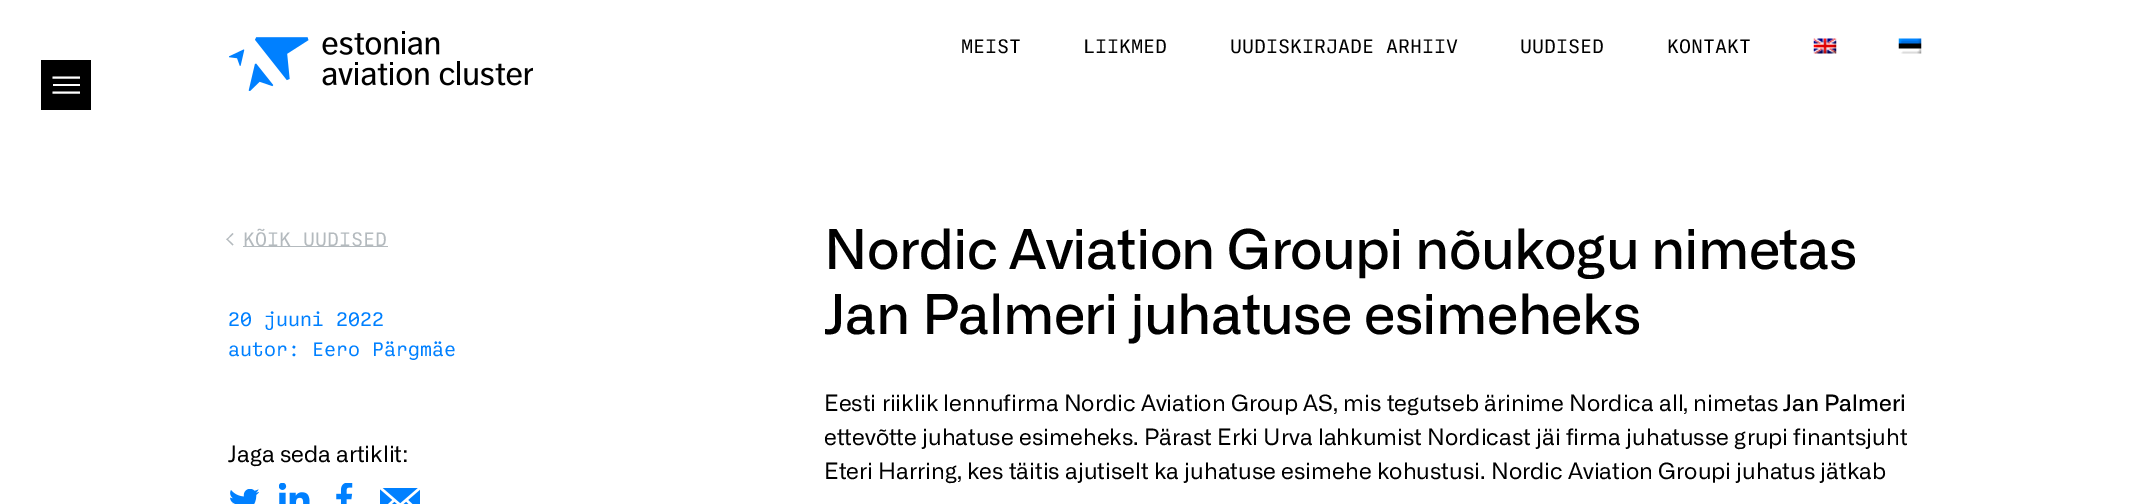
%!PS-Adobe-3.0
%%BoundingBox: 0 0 2148 504
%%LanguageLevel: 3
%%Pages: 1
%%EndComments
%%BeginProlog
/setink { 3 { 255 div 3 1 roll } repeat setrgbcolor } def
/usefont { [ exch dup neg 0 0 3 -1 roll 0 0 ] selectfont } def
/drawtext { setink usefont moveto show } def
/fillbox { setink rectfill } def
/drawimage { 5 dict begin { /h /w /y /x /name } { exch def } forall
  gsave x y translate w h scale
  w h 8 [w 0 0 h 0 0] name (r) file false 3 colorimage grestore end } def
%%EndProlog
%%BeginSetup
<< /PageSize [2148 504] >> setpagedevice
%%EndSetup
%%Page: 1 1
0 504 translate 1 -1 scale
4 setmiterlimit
0 0 2148 504 255 255 255 fillbox
(assets/img1.rgb) 229 31 304 60 drawimage
(MEIST) 961 53 /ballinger-Regular 20 0 0 0 drawtext
(LIIKMED) 1083 53 /ballinger-Regular 20 0 0 0 drawtext
(UUDISKIRJADE ARHIIV) 1230 53 /ballinger-Regular 20 0 0 0 drawtext
(UUDISED) 1520 53 /ballinger-Regular 20 0 0 0 drawtext
(KONTAKT) 1667 53 /ballinger-Regular 20 0 0 0 drawtext
(assets/img2.rgb) 1813 38 24 16 drawimage
(assets/img3.rgb) 1898 38 24 16 drawimage
41 60 50 50 0 0 0 fillbox
255 255 255 setink
2 setlinewidth
52.5 77.5 moveto 80 77.5 lineto stroke
53 84 27 2 255 255 255 fillbox
52.5 92.5 moveto 80 92.5 lineto stroke
180 186 190 setink
232.5 245.5 moveto 226.5 239.5 lineto 227 238.5 lineto 233.5 244.5 lineto closepath fill
227 240 moveto 226.5 239.5 lineto 232.5 233 lineto 233.5 234 lineto closepath fill
243 246 145 1 180 186 190 fillbox
(KÕIK UUDISED) 243 246 /ballinger-Regular 20 180 186 190 drawtext
(20 juuni 2022) 228 326 /ballinger-Regular 20 0 128 255 drawtext
(autor: Eero Pärgmäe) 228 356 /ballinger-Regular 20 0 128 255 drawtext
(Jaga seda artiklit:) 228 462 /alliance-Regular 22.5 0 0 0 drawtext
(assets/img4.rgb) 230 489 29 15 drawimage
(assets/img5.rgb) 279 483 31 21 drawimage
(assets/img6.rgb) 336 483 17 21 drawimage
(assets/img7.rgb) 380 488 40 16 drawimage
/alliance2-Regular 55 usefont
824 269 moveto -0.6 0 (Nordic Aviation Groupi nõukogu nimetas) ashow
824 334 moveto -0.6 0 (Jan Palmeri juhatuse esimeheks) ashow
(Eesti riiklik lennufirma Nordic Aviation Group AS, mis tegutseb ärinime Nordica all, nimetas) 824 411 /alliance-Regular 22.5 0 0 0 drawtext
(Jan Palmeri) 1783 411 /alliance2-Regular 22.5 0 0 0 drawtext
(ettevõtte juhatuse esimeheks. Pärast Erki Urva lahkumist Nordicast jäi firma juhatusse grupi finantsjuht) 824 445 /alliance-Regular 22.5 0 0 0 drawtext
(Eteri Harring, kes täitis ajutiselt ka juhatuse esimehe kohustusi. Nordic Aviation Groupi juhatus jätkab) 824 479 /alliance-Regular 22.5 0 0 0 drawtext
showpage
%%EOF
